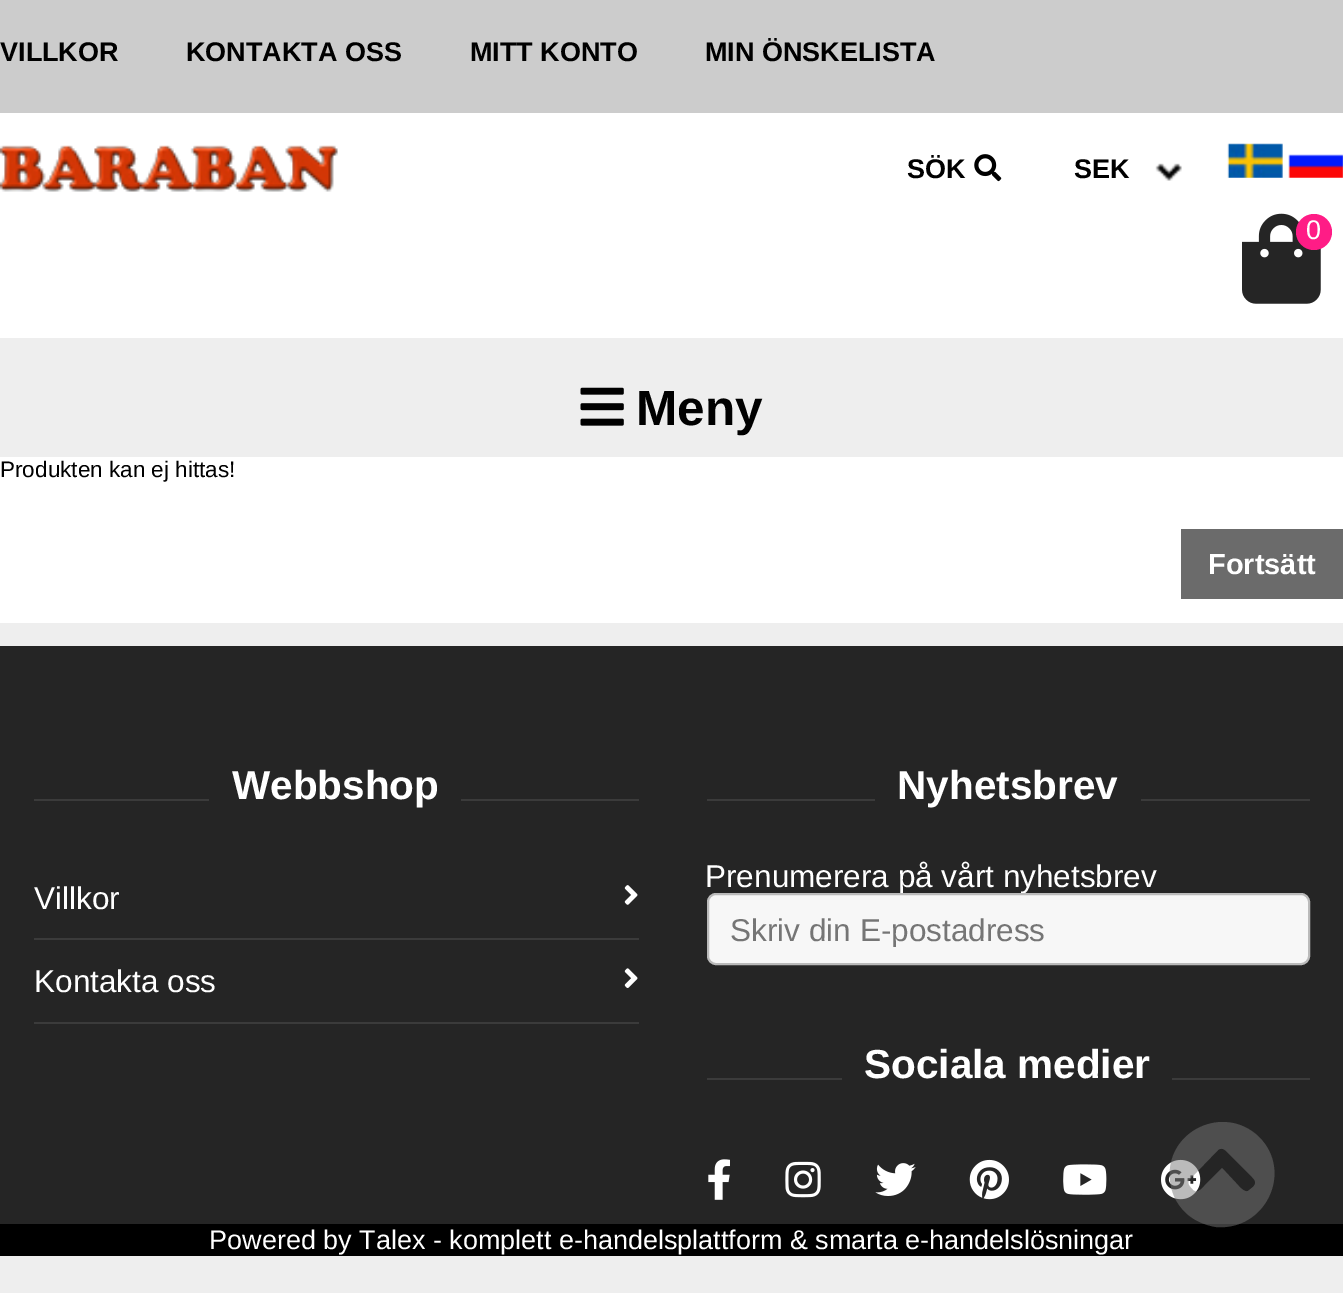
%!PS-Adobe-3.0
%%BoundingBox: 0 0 1343 1293
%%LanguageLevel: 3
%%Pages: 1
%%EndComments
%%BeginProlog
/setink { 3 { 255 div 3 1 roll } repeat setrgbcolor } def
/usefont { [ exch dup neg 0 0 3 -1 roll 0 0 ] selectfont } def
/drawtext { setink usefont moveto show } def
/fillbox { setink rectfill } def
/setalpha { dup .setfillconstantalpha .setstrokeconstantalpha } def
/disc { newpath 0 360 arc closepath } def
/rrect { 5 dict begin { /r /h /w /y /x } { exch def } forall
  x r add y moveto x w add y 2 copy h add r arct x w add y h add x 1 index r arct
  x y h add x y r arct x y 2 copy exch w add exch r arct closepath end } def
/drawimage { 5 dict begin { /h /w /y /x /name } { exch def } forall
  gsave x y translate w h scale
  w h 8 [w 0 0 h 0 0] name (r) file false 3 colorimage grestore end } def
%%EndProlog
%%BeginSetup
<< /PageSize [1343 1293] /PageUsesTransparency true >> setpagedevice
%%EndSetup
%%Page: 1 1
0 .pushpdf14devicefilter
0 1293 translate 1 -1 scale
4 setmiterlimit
0 0 1343 1293 238 238 238 fillbox
0 0 1343 113 204 204 204 fillbox
(VILLKOR) 0 61 /LiberationSans-Bold 27 0 0 0 drawtext
(KONTAKTA OSS) 186 61 /LiberationSans-Bold 27 0 0 0 drawtext
(MITT KONTO) 470 61 /LiberationSans-Bold 27 0 0 0 drawtext
(MIN ÖNSKELISTA) 705 61 /LiberationSans-Bold 27 0 0 0 drawtext
0 113 1343 225 255 255 255 fillbox
(SÖK) 907 178 /LiberationSans-Bold 27 0 0 0 drawtext
(assets/img1.rgb) 974 154 28 28 drawimage
(assets/img2.rgb) 1155 163 27 18 drawimage
(SEK) 1074 178 /LiberationSans-Bold 27 0 0 0 drawtext
(assets/img3.rgb) 1227 143 56 35 drawimage
(assets/img4.rgb) 1288 154 55 24 drawimage
(assets/img5.rgb) 0 145 338 47 drawimage
(assets/img6.rgb) 1242 213 79 91 drawimage
255 28 134 setink
1314 232 18 disc fill
(0) 1306 239 /LiberationSans-Regular 27 255 255 255 drawtext
(assets/img7.rgb) 580 387 44 39 drawimage
(Meny) 636 425 /LiberationSans-Bold 49.5 0 0 0 drawtext
0 457 1343 166 255 255 255 fillbox
(Produkten kan ej hittas!) 0 477 /LiberationSans-Regular 22.5 0 0 0 drawtext
1181 529 162 70 107 107 107 fillbox
(Fortsätt) 1208 574 /LiberationSans-Bold 29 255 255 255 drawtext
0 646 1343 578 37 37 37 fillbox
(assets/img15.rgb) 1161 1159 40 41 drawimage
0 1224 1343 32 0 0 0 fillbox
0.5 setalpha
119 119 119 setink
1185 1212 moveto 1176 1203 1171 1192 1170 1180 curveto 1165 1131 1224 1103 1259 1137 curveto 1294 1172 1265 1231 1216 1227 curveto 1204 1225 1193 1220 1185 1212 curveto closepath 1218 1150 moveto 1190 1179 lineto 1186 1183 1190 1187 1193 1190 curveto 1198 1195 1204 1186 1207 1183 curveto 1222 1168 lineto 1236 1183 lineto 1238 1185 1244 1193 1248 1191 curveto 1253 1187 lineto 1258 1182 1254 1179 1249 1174 curveto 1230 1155 lineto 1227 1152 1223 1146 1218 1150 curveto closepath fill
1 setalpha
34 799 605 2 59 59 59 fillbox
209 799 252 2 37 37 37 fillbox
(Webbshop) 232 799 /LiberationSans-Bold 40.5 255 255 255 drawtext
(Villkor) 34 909 /LiberationSans-Regular 31.5 255 255 255 drawtext
(assets/img8.rgb) 624 885 14 20 drawimage
34 938 605 2 59 59 59 fillbox
(Kontakta oss) 34 992 /LiberationSans-Regular 31.5 255 255 255 drawtext
(assets/img9.rgb) 624 968 14 20 drawimage
34 1022 605 2 59 59 59 fillbox
707 799 603 2 59 59 59 fillbox
875 799 266 2 37 37 37 fillbox
(Nyhetsbrev) 897 799 /LiberationSans-Bold 40.5 255 255 255 drawtext
(Prenumerera på vårt nyhetsbrev) 705 887 /LiberationSans-Regular 31.5 255 255 255 drawtext
247 247 247 setink
708 894 601 70 8 rrect gsave fill grestore
186 186 186 setink
2 setlinewidth
stroke
gsave
731 911 531 36 rectclip
(Skriv din E-postadress) 730 941 /LiberationSans-Regular 31.5 117 117 117 drawtext
grestore
707 1078 603 2 59 59 59 fillbox
842 1078 330 2 37 37 37 fillbox
(Sociala medier) 864 1078 /LiberationSans-Bold 40.5 255 255 255 drawtext
(assets/img10.rgb) 708 1159 22 41 drawimage
(assets/img11.rgb) 785 1161 36 37 drawimage
(assets/img12.rgb) 875 1163 41 33 drawimage
(assets/img13.rgb) 969 1159 40 41 drawimage
(assets/img14.rgb) 1063 1164 44 31 drawimage
(Powered by Talex - komplett e-handelsplattform & smarta e-handelslösningar) 209 1249 /LiberationSans-Regular 27 255 255 255 drawtext
.poppdf14devicefilter showpage
%%EOF
